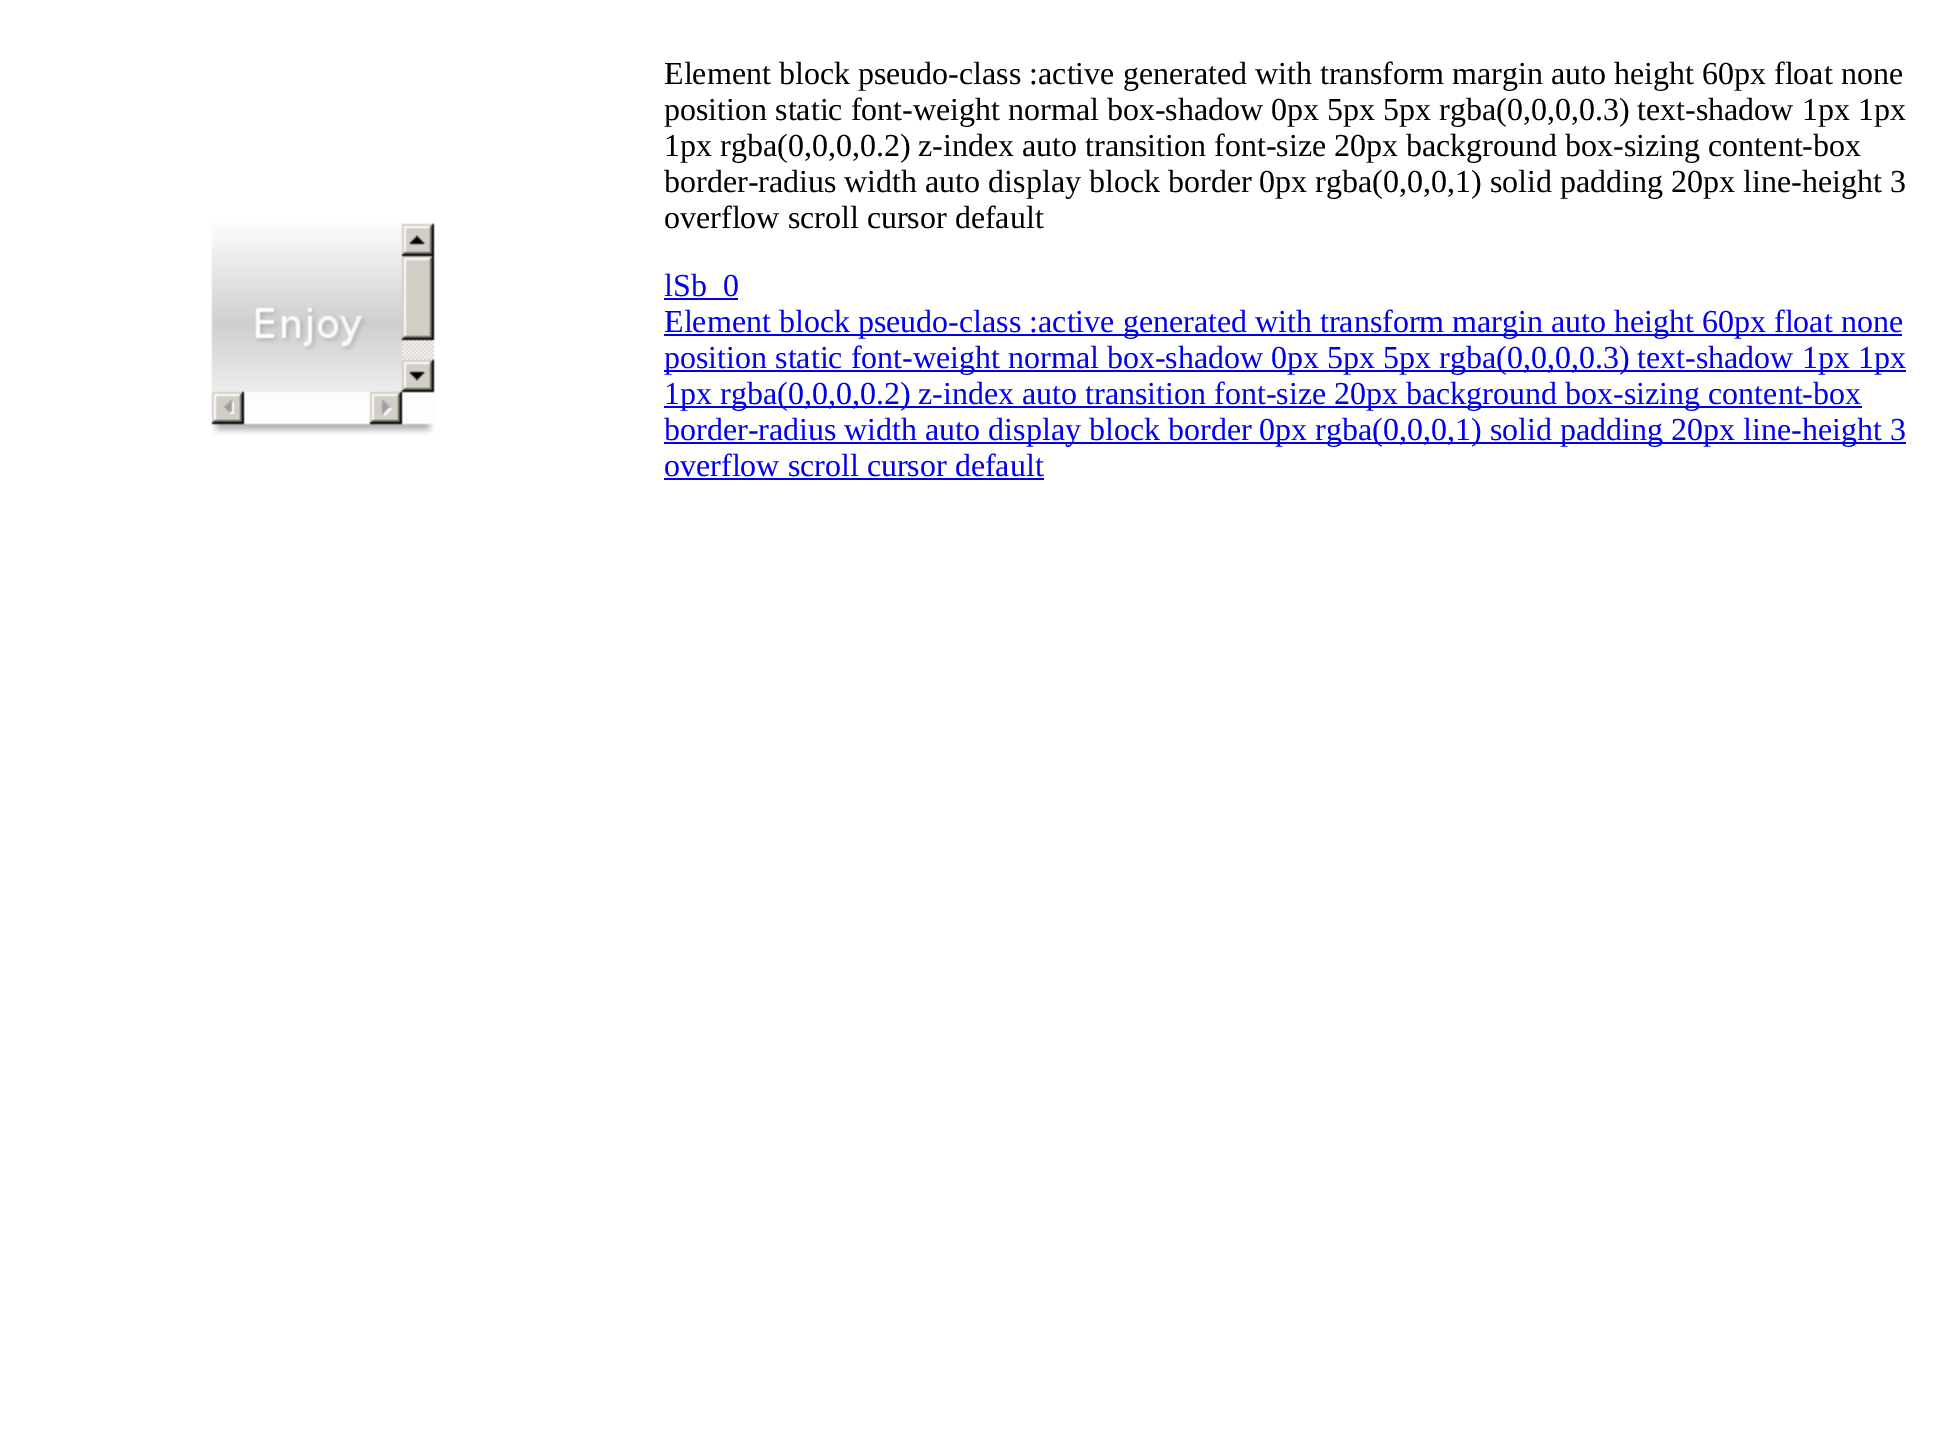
%!PS-Adobe-3.0
%%BoundingBox: 0 0 1945 1439
%%LanguageLevel: 3
%%Pages: 1
%%EndComments
%%BeginProlog
/setink { 3 { 255 div 3 1 roll } repeat setrgbcolor } def
/usefont { [ exch dup neg 0 0 3 -1 roll 0 0 ] selectfont } def
/drawtext { setink usefont moveto show } def
/fillbox { setink rectfill } def
/drawimage { 5 dict begin { /h /w /y /x /name } { exch def } forall
  gsave x y translate w h scale
  w h 8 [w 0 0 h 0 0] name (r) file false 3 colorimage grestore end } def
%%EndProlog
%%BeginSetup
<< /PageSize [1945 1439] >> setpagedevice
%%EndSetup
%%Page: 1 1
0 1439 translate 1 -1 scale
4 setmiterlimit
0 0 1945 1439 255 255 255 fillbox
(assets/img1.rgb) 211 223 224 212 drawimage
(Element block pseudo-class :active generated with transform margin auto height 60px float none) 664 84 /LiberationSerif-Regular 32 0 0 0 drawtext
(position static font-weight normal box-shadow 0px 5px 5px rgba\(0,0,0,0.3\) text-shadow 1px 1px) 664 120 /LiberationSerif-Regular 32 0 0 0 drawtext
(1px rgba\(0,0,0,0.2\) z-index auto transition font-size 20px background box-sizing content-box) 664 156 /LiberationSerif-Regular 32 0 0 0 drawtext
(border-radius width auto display block border 0px rgba\(0,0,0,1\) solid padding 20px line-height 3) 664 192 /LiberationSerif-Regular 32 0 0 0 drawtext
(overflow scroll cursor default) 664 228 /LiberationSerif-Regular 32 0 0 0 drawtext
664 298 74 2 0 0 238 fillbox
(lSb_0) 664 296 /LiberationSerif-Regular 32 0 0 238 drawtext
664 334 1238 2 0 0 238 fillbox
(Element block pseudo-class :active generated with transform margin auto height 60px float none) 664 332 /LiberationSerif-Regular 32 0 0 238 drawtext
664 370 1242 2 0 0 238 fillbox
(position static font-weight normal box-shadow 0px 5px 5px rgba\(0,0,0,0.3\) text-shadow 1px 1px) 664 368 /LiberationSerif-Regular 32 0 0 238 drawtext
664 406 1198 2 0 0 238 fillbox
(1px rgba\(0,0,0,0.2\) z-index auto transition font-size 20px background box-sizing content-box) 664 404 /LiberationSerif-Regular 32 0 0 238 drawtext
664 442 1242 2 0 0 238 fillbox
(border-radius width auto display block border 0px rgba\(0,0,0,1\) solid padding 20px line-height 3) 664 440 /LiberationSerif-Regular 32 0 0 238 drawtext
(overflow scroll cursor default) 664 476 /LiberationSerif-Regular 32 0 0 238 drawtext
664 478 380 2 0 0 238 fillbox
showpage
%%EOF
